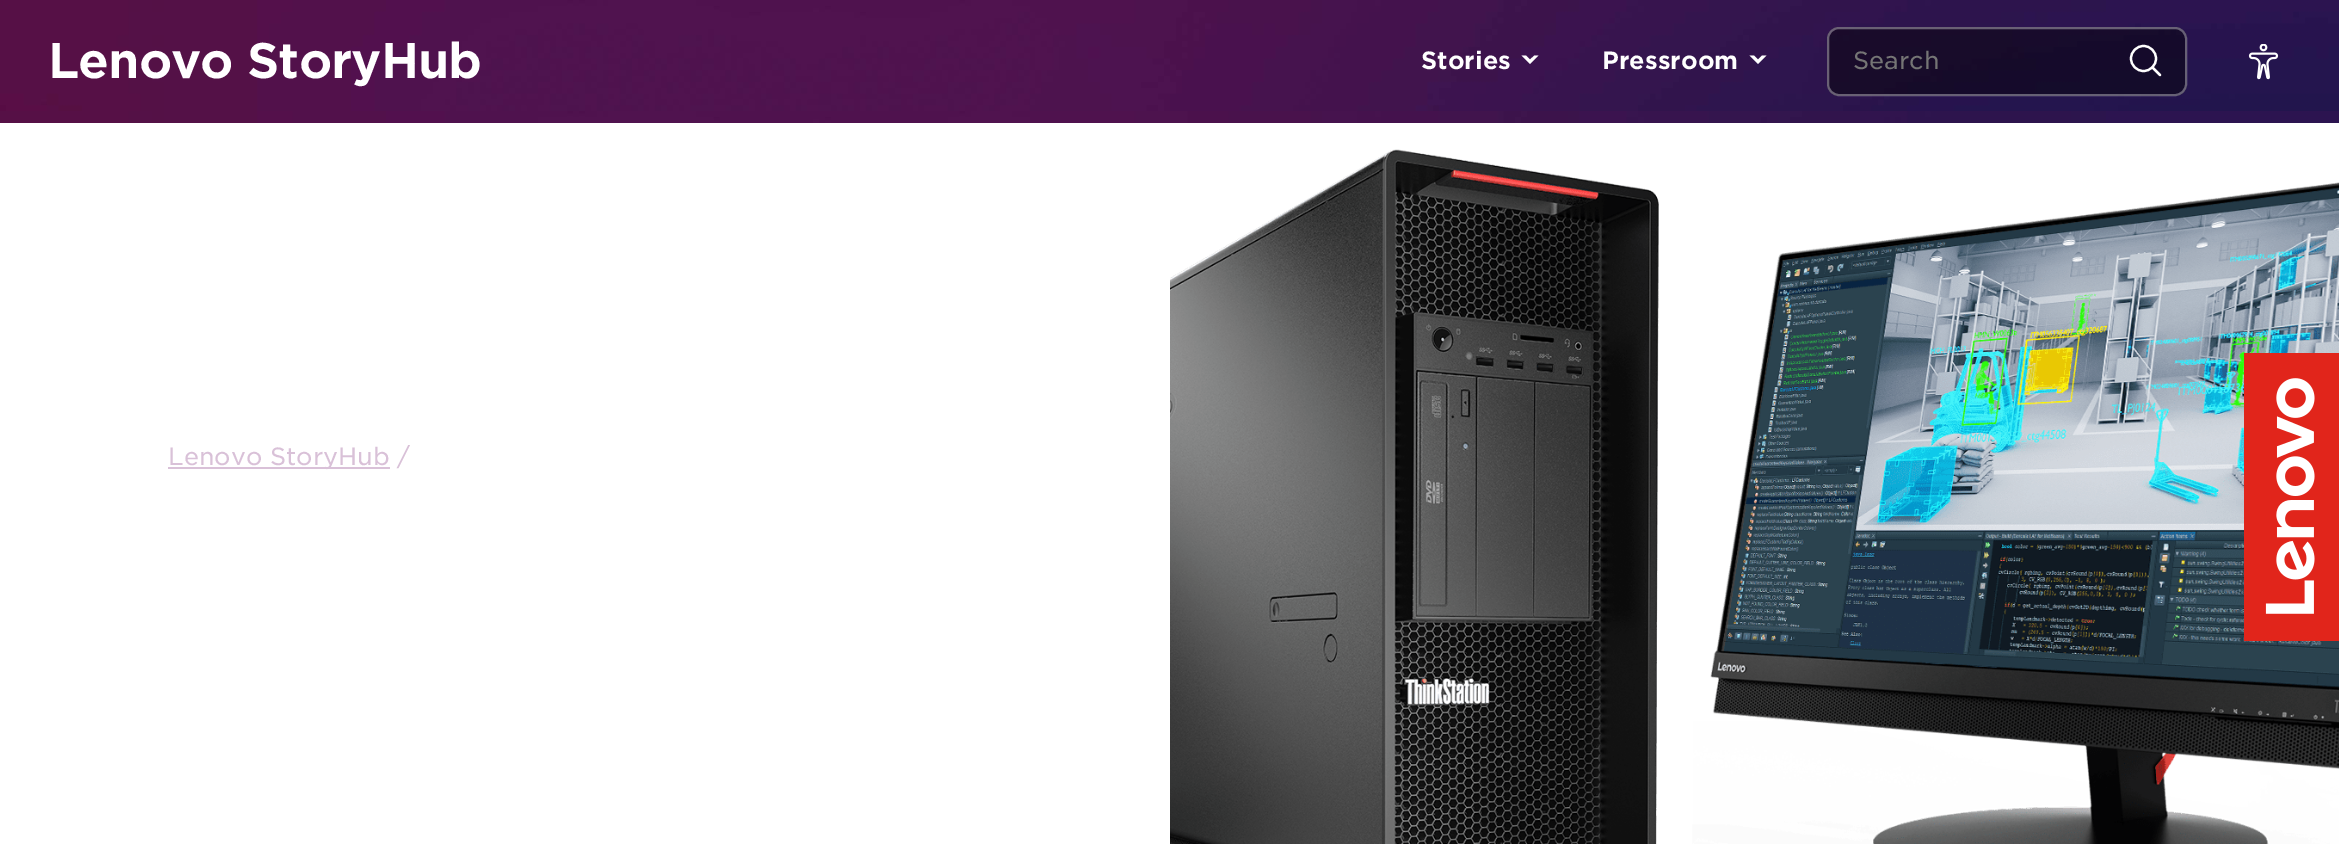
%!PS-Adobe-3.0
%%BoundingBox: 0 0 2339 844
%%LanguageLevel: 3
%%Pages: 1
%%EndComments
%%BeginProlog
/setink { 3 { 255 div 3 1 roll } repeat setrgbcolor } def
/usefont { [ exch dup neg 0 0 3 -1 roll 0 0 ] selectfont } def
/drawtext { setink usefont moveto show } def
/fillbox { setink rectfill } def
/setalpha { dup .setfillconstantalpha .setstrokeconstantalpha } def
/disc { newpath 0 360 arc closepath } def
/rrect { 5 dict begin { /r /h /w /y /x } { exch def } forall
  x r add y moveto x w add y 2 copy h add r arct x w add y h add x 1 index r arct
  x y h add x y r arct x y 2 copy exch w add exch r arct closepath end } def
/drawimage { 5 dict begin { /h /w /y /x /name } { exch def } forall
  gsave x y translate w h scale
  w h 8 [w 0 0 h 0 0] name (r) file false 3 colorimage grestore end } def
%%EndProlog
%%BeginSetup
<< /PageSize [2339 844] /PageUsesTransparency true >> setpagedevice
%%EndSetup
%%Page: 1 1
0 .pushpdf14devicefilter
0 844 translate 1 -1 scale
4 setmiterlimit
0 0 2339 844 255 255 255 fillbox
(assets/img1.rgb) 0 0 2339 123 drawimage
/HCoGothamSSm-Bold 48 usefont
48 78 moveto -1 0 (Lenovo StoryHub) ashow
(Stories) 1421 69 /HCoGothamSSm-Bold 24 255 255 255 drawtext
1538.5 55.5 moveto 1530 64 lineto 1530 59.5 lineto 1534.5 55.5 lineto closepath 1530 64 moveto 1521.5 55.5 lineto 1526 55.5 lineto 1530 59.5 lineto closepath fill
(Pressroom) 1602 69 /HCoGothamSSm-Bold 24 255 255 255 drawtext
1766.5 55.5 moveto 1758 64 lineto 1758 59.5 lineto 1762 55.5 lineto closepath 1758 64 moveto 1749.5 55.5 lineto 1754 55.5 lineto 1758 59.5 lineto closepath fill
0.45 setalpha
0 0 0 setink
1827 27 360 69 12 rrect fill
0.35 setalpha
255 255 255 setink
2 setlinewidth
1828 28 358 67 11 rrect stroke
1 setalpha
(Search) 1853 69 /HCoGothamSSm-Regular 24 117 117 117 drawtext
255 255 255 setink
2.2 setlinewidth
2143.5 58.5 12.5 disc stroke
1 setlinecap
1 setlinejoin
2160 75 moveto 2152.5 67.5 lineto stroke
(assets/img2.rgb) 2248 44 31 36 drawimage
168 467 222 2 217 193 216 fillbox
(Lenovo StoryHub) 168 465 /HCoGothamSSm-Regular 24 217 193 216 drawtext
(/) 397 465 /HCoGothamSSm-Regular 24 217 193 216 drawtext
(assets/img3.rgb) 1170 149 1169 695 drawimage
2244 353 95 288 225 37 27 fillbox
(assets/img4.rgb) 2265 378 50 236 drawimage
.poppdf14devicefilter showpage
%%EOF
